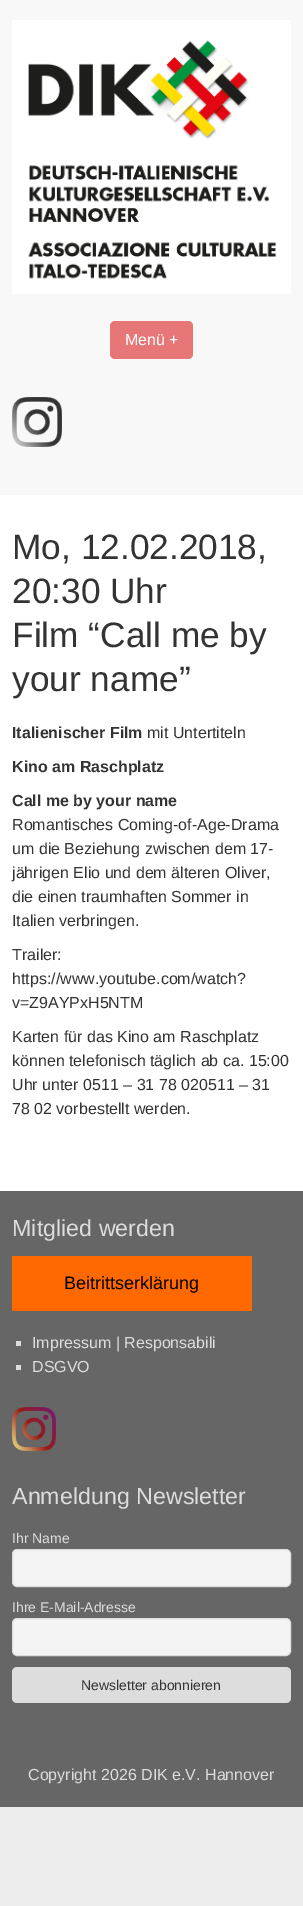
%!PS-Adobe-3.0
%%BoundingBox: 0 0 303 1906
%%LanguageLevel: 3
%%Pages: 1
%%EndComments
%%BeginProlog
/setink { 3 { 255 div 3 1 roll } repeat setrgbcolor } def
/usefont { [ exch dup neg 0 0 3 -1 roll 0 0 ] selectfont } def
/drawtext { setink usefont moveto show } def
/fillbox { setink rectfill } def
/rrect { 5 dict begin { /r /h /w /y /x } { exch def } forall
  x r add y moveto x w add y 2 copy h add r arct x w add y h add x 1 index r arct
  x y h add x y r arct x y 2 copy exch w add exch r arct closepath end } def
/drawimage { 5 dict begin { /h /w /y /x /name } { exch def } forall
  gsave x y translate w h scale
  w h 8 [w 0 0 h 0 0] name (r) file false 3 colorimage grestore end } def
%%EndProlog
%%BeginSetup
<< /PageSize [303 1906] >> setpagedevice
%%EndSetup
%%Page: 1 1
0 1906 translate 1 -1 scale
4 setmiterlimit
0 0 303 1906 237 237 237 fillbox
0 495 303 696 255 255 255 fillbox
0 0 303 495 248 248 248 fillbox
(assets/img1.rgb) 12 20 279 274 drawimage
231 119 118 setink
110 321 83 38 5 rrect fill
(Menü +) 125 345 /LiberationSans-Regular 16 255 255 255 drawtext
(assets/img2.rgb) 12 397 50 50 drawimage
(Mo, 12.02.2018,) 12 559 /LiberationSans-Regular 35.25 51 51 51 drawtext
(20:30 Uhr) 12 603 /LiberationSans-Regular 35.25 51 51 51 drawtext
(Film “Call me by) 12 647 /LiberationSans-Regular 35.25 51 51 51 drawtext
(your name”) 12 691 /LiberationSans-Regular 35.25 51 51 51 drawtext
(Italienischer Film) 12 738 /LiberationSans-Bold 16 51 51 51 drawtext
(mit Untertiteln) 147 738 /LiberationSans-Regular 16 51 51 51 drawtext
(Kino am Raschplatz) 12 772 /LiberationSans-Bold 16 51 51 51 drawtext
(Call me by your name) 12 806 /LiberationSans-Bold 16 51 51 51 drawtext
(Romantisches Coming-of-Age-Drama) 12 830 /LiberationSans-Regular 16 51 51 51 drawtext
(um die Beziehung zwischen dem 17-) 12 854 /LiberationSans-Regular 16 51 51 51 drawtext
(jährigen Elio und dem älteren Oliver,) 12 878 /LiberationSans-Regular 16 51 51 51 drawtext
(die einen traumhaften Sommer in) 12 902 /LiberationSans-Regular 16 51 51 51 drawtext
(Italien verbringen.) 12 926 /LiberationSans-Regular 16 51 51 51 drawtext
(Trailer:) 12 960 /LiberationSans-Regular 16 51 51 51 drawtext
(https://www.youtube.com/watch?) 12 984 /LiberationSans-Regular 16 51 51 51 drawtext
(v=Z9AYPxH5NTM) 12 1008 /LiberationSans-Regular 16 51 51 51 drawtext
(Karten für das Kino am Raschplatz) 12 1042 /LiberationSans-Regular 16 51 51 51 drawtext
(können telefonisch täglich ab ca. 15:00) 12 1066 /LiberationSans-Regular 16 51 51 51 drawtext
(Uhr unter 0511 – 31 78 020511 – 31) 12 1090 /LiberationSans-Regular 16 51 51 51 drawtext
(78 02 vorbestellt werden.) 12 1114 /LiberationSans-Regular 16 51 51 51 drawtext
0 1191 303 616 102 102 102 fillbox
(Mitglied werden) 12 1236 /LiberationSans-Regular 23.25 221 221 221 drawtext
12 1256 240 55 255 105 0 fillbox
(Beitrittserklärung) 64 1289 /LiberationSans-Regular 18 0 0 0 drawtext
16 1341 5 5 221 221 221 fillbox
(Impressum | Responsabili) 32 1348 /LiberationSans-Regular 16 221 221 221 drawtext
16 1365 5 5 221 221 221 fillbox
(DSGVO) 32 1372 /LiberationSans-Regular 16 221 221 221 drawtext
(assets/img3.rgb) 12 1407 44 44 drawimage
(Anmeldung Newsletter) 12 1504 /LiberationSans-Regular 23.25 221 221 221 drawtext
(Ihr Name) 12 1543 /LiberationSans-Regular 14 221 221 221 drawtext
244 244 244 setink
12.5 1549.5 278 37 4.5 rrect gsave fill grestore
221 221 221 setink
stroke
(Ihre E-Mail-Adresse) 12 1612 /LiberationSans-Regular 14 221 221 221 drawtext
244 244 244 setink
12.5 1618.5 278 37 4.5 rrect gsave fill grestore
221 221 221 setink
stroke
12 1667 279 36 5 rrect fill
(Newsletter abonnieren) 81 1690 /LiberationSans-Regular 14 51 51 51 drawtext
(Copyright 2026 DIK e.V. Hannover) 28 1780 /LiberationSans-Regular 16 221 221 221 drawtext
showpage
%%EOF
